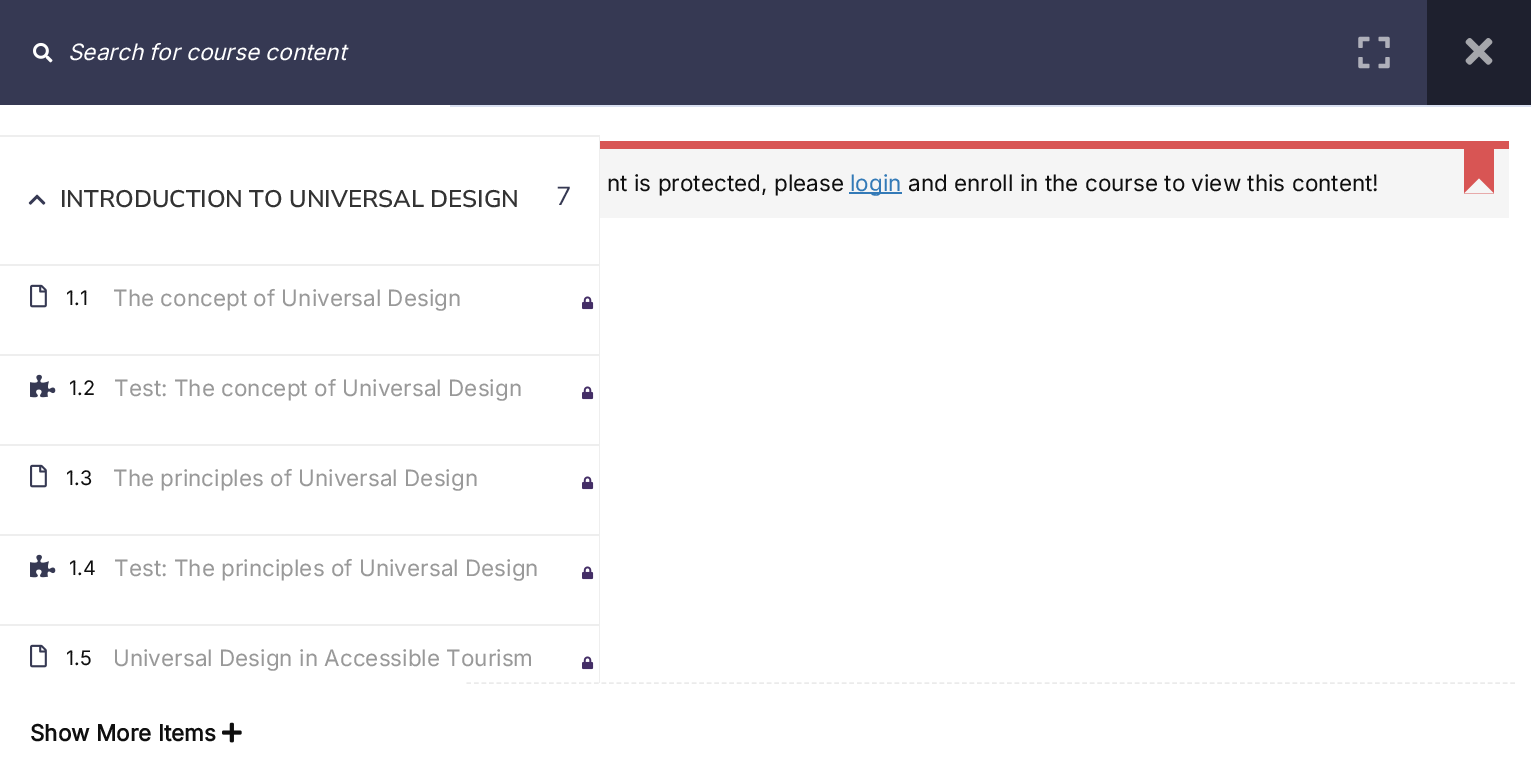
%!PS-Adobe-3.0
%%BoundingBox: 0 0 1531 757
%%LanguageLevel: 3
%%Pages: 1
%%EndComments
%%BeginProlog
/setink { 3 { 255 div 3 1 roll } repeat setrgbcolor } def
/usefont { [ exch dup neg 0 0 3 -1 roll 0 0 ] selectfont } def
/drawtext { setink usefont moveto show } def
/fillbox { setink rectfill } def
/drawimage { 5 dict begin { /h /w /y /x /name } { exch def } forall
  gsave x y translate w h scale
  w h 8 [w 0 0 h 0 0] name (r) file false 3 colorimage grestore end } def
%%EndProlog
%%BeginSetup
<< /PageSize [1531 757] >> setpagedevice
%%EndSetup
%%Page: 1 1
0 757 translate 1 -1 scale
4 setmiterlimit
0 0 1531 757 255 255 255 fillbox
0 0 1427 105 54 57 83 fillbox
(assets/img1.rgb) 33 42 20 21 drawimage
(Search for course content) 68 60 /Inter-Italic 22.5 255 255 255 drawtext
0 135 599 2 238 238 238 fillbox
(assets/img2.rgb) 28 194 18 11 drawimage
(INTRODUCTION TO UNIVERSAL DESIGN) 60 207 /NunitoSans-SemiBold 24 51 51 51 drawtext
(7) 556 205 /NunitoSans-Regular 26 54 57 83 drawtext
0 264 599 2 238 238 238 fillbox
(assets/img3.rgb) 30 284 17 24 drawimage
(1.1) 66 305 /Inter-Regular 20 15 15 15 drawtext
(The concept of Universal Design) 113 306 /Inter-Regular 22.5 153 153 153 drawtext
(assets/img4.rgb) 582 296 12 14 drawimage
0 354 599 2 238 238 238 fillbox
(assets/img5.rgb) 30 374 26 24 drawimage
(1.2) 69 395 /Inter-Regular 20 15 15 15 drawtext
(Test: The concept of Universal Design) 114 396 /Inter-Regular 22.5 153 153 153 drawtext
(assets/img4.rgb) 582 386 12 14 drawimage
0 444 599 2 238 238 238 fillbox
(assets/img3.rgb) 30 464 17 24 drawimage
(1.3) 66 485 /Inter-Regular 20 15 15 15 drawtext
(The principles of Universal Design) 113 486 /Inter-Regular 22.5 153 153 153 drawtext
(assets/img4.rgb) 582 476 12 14 drawimage
0 534 599 2 238 238 238 fillbox
(assets/img5.rgb) 30 554 26 24 drawimage
(1.4) 69 575 /Inter-Regular 20 15 15 15 drawtext
(Test: The principles of Universal Design) 114 576 /Inter-Regular 22.5 153 153 153 drawtext
(assets/img4.rgb) 582 566 12 14 drawimage
0 624 599 2 238 238 238 fillbox
(assets/img3.rgb) 30 644 17 24 drawimage
(1.5) 66 665 /Inter-Regular 20 15 15 15 drawtext
(Universal Design in Accessible Tourism) 113 666 /Inter-Regular 22.5 153 153 153 drawtext
(assets/img4.rgb) 582 656 12 14 drawimage
(Show More Items) 30 741 /Inter-Bold 22.5 15 15 15 drawtext
(assets/img6.rgb) 222 722 20 21 drawimage
599 135 1 548 238 238 238 fillbox
450 105 1081 2 217 224 241 fillbox
(assets/img7.rgb) 1358 36 32 33 drawimage
1427 0 104 105 30 32 46 fillbox
(assets/img8.rgb) 1465 38 28 27 drawimage
600 149 909 69 245 245 245 fillbox
600 141 909 8 216 85 84 fillbox
(nt is protected, please) 607 191 /Inter-Regular 22.5 15 15 15 drawtext
849 192 53 2 51 122 183 fillbox
(login) 850 191 /Inter-Regular 22.5 51 122 183 drawtext
(and enroll in the course to view this content!) 908 191 /Inter-Regular 22.5 15 15 15 drawtext
1464 149 30 45 216 85 84 fillbox
245 245 245 setink
1494 193.5 moveto 1464 193.5 lineto 1479 178.5 lineto closepath fill
235 235 235 setink
1.5 setlinewidth
[4.5 3.01] 0 setdash
466.5 683 moveto 1516.5 683 lineto stroke
showpage
%%EOF
